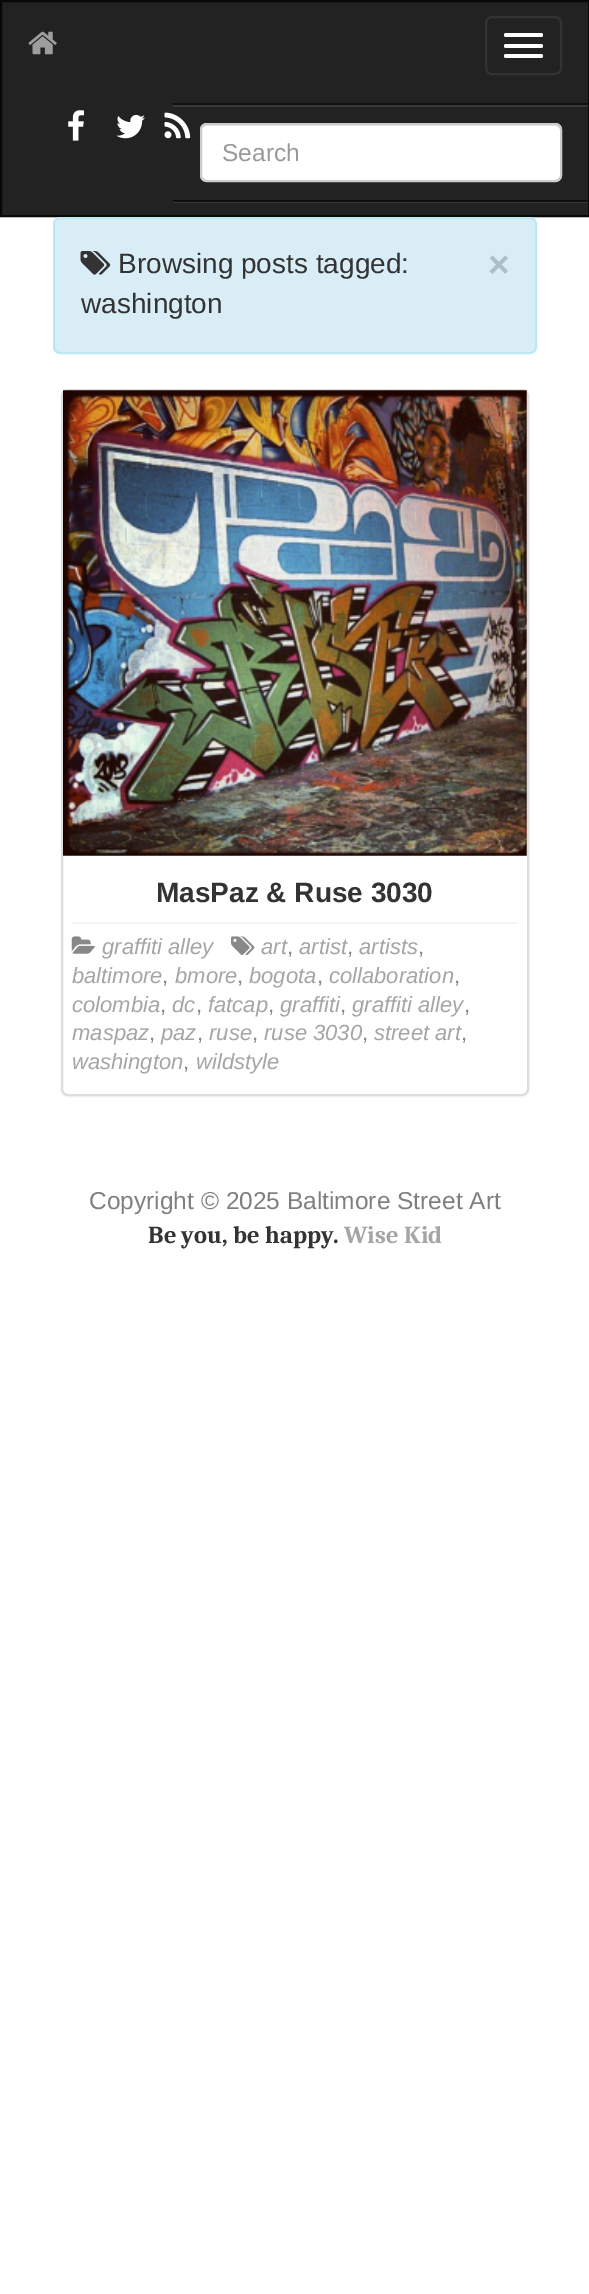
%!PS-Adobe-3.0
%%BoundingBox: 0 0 589 2294
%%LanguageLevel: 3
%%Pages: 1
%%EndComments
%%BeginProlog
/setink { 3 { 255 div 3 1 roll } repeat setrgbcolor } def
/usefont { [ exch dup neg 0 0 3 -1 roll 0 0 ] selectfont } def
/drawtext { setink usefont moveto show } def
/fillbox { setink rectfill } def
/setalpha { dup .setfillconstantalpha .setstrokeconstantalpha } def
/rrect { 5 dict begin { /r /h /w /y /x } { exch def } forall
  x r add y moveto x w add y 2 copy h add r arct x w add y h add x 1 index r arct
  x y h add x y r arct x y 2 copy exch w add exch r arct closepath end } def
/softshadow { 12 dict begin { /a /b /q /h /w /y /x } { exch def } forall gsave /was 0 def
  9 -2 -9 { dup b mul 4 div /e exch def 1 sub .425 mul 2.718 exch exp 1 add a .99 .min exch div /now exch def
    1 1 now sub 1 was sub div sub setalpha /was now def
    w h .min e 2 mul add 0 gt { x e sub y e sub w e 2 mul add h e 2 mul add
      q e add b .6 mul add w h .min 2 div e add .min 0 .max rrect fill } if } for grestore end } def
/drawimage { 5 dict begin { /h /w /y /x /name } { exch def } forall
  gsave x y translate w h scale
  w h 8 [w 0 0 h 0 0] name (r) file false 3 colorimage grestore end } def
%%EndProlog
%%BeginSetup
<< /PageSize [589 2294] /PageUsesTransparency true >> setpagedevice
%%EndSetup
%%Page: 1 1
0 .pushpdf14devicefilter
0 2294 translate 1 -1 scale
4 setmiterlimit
0 0 589 2294 255 255 255 fillbox
34 34 34 setink
1 1 moveto 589 1 lineto 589 216 lineto 1 216 lineto closepath gsave fill grestore
8 8 8 setink
2 setlinewidth
stroke
(assets/img1.rgb) 28 31 29 24 drawimage
51 51 51 setink
486 17 75 57 6 rrect stroke
255 255 255 setink
504 33 39 4 2 rrect fill
504 44 39 4 2 rrect fill
504 54 39 4 2 rrect fill
(assets/img2.rgb) 68 110 16 31 drawimage
(assets/img3.rgb) 116 114 29 25 drawimage
(assets/img4.rgb) 164 112 27 27 drawimage
56 56 56 setink
173 105 moveto 173 203 lineto 588 203 lineto 588 201 lineto 173 201 lineto closepath fill
173 105 415 2 56 56 56 fillbox
173 103 415 2 16 16 16 fillbox
173 200 415 2 16 16 16 fillbox
255 255 255 setink
200 123 362 59 7 rrect fill
236 236 236 setink
206 126 moveto 555 126 lineto 558 126 560 128 560 131 curveto 560 128 559 124 555 124 curveto 206 124 lineto 202 124 201 128 201 131 curveto 201 128 204 126 206 126 curveto closepath fill
204 204 204 setink
201 124 360 57 6 rrect stroke
(Search) 222 161 /LiberationSans-Regular 24.5 153 153 153 drawtext
217 237 247 setink
54 218 482 135 6 rrect gsave fill grestore
188 232 241 setink
stroke
(assets/img5.rgb) 80 251 31 24 drawimage
(Browsing posts tagged:) 118 273 /LiberationSans-Regular 28 51 51 51 drawtext
(washington) 81 313 /LiberationSans-Regular 28 51 51 51 drawtext
(×) 488 277 /LiberationSans-Bold 37 174 190 198 drawtext
0 0 0 setink
61 390 468 707 7 1 0.05 softshadow
255 255 255 setink
62 390 466 705 6 rrect gsave fill grestore
221 221 221 setink
stroke
(assets/img6.rgb) 63 390 464 466 drawimage
(MasPaz & Ruse 3030) 156 902 /LiberationSans-Bold 28 51 51 51 drawtext
72 922 446 2 245 245 245 fillbox
(assets/img7.rgb) 71 936 24 18 drawimage
(graffiti alley) 102 954 /LiberationSans-Italic 22 165 165 165 drawtext
(assets/img8.rgb) 231 936 24 19 drawimage
(art) 261 954 /LiberationSans-Italic 22 165 165 165 drawtext
(,) 287 954 /LiberationSans-Regular 22 136 136 136 drawtext
(artist) 299 954 /LiberationSans-Italic 22 165 165 165 drawtext
(,) 347 954 /LiberationSans-Regular 22 136 136 136 drawtext
(artists) 359 954 /LiberationSans-Italic 22 165 165 165 drawtext
(,) 418 954 /LiberationSans-Regular 22 136 136 136 drawtext
(baltimore) 72 983 /LiberationSans-Italic 22 165 165 165 drawtext
(,) 162 983 /LiberationSans-Regular 22 136 136 136 drawtext
(bmore) 175 983 /LiberationSans-Italic 22 165 165 165 drawtext
(,) 237 983 /LiberationSans-Regular 22 136 136 136 drawtext
(bogota) 249 983 /LiberationSans-Italic 22 165 165 165 drawtext
(,) 317 983 /LiberationSans-Regular 22 136 136 136 drawtext
(collaboration) 329 983 /LiberationSans-Italic 22 165 165 165 drawtext
(,) 454 983 /LiberationSans-Regular 22 136 136 136 drawtext
(colombia) 72 1012 /LiberationSans-Italic 22 165 165 165 drawtext
(,) 160 1012 /LiberationSans-Regular 22 136 136 136 drawtext
(dc) 172 1012 /LiberationSans-Italic 22 165 165 165 drawtext
(,) 196 1012 /LiberationSans-Regular 22 136 136 136 drawtext
(fatcap) 208 1012 /LiberationSans-Italic 22 165 165 165 drawtext
(,) 268 1012 /LiberationSans-Regular 22 136 136 136 drawtext
(graffiti) 280 1012 /LiberationSans-Italic 22 165 165 165 drawtext
(,) 340 1012 /LiberationSans-Regular 22 136 136 136 drawtext
(graffiti alley) 352 1012 /LiberationSans-Italic 22 165 165 165 drawtext
(,) 464 1012 /LiberationSans-Regular 22 136 136 136 drawtext
(maspaz) 72 1040 /LiberationSans-Italic 22 165 165 165 drawtext
(,) 149 1040 /LiberationSans-Regular 22 136 136 136 drawtext
(paz) 161 1040 /LiberationSans-Italic 22 165 165 165 drawtext
(,) 197 1040 /LiberationSans-Regular 22 136 136 136 drawtext
(ruse) 209 1040 /LiberationSans-Italic 22 165 165 165 drawtext
(,) 252 1040 /LiberationSans-Regular 22 136 136 136 drawtext
(ruse 3030) 264 1040 /LiberationSans-Italic 22 165 165 165 drawtext
(,) 362 1040 /LiberationSans-Regular 22 136 136 136 drawtext
(street art) 374 1040 /LiberationSans-Italic 22 165 165 165 drawtext
(,) 461 1040 /LiberationSans-Regular 22 136 136 136 drawtext
(washington) 72 1069 /LiberationSans-Italic 22 165 165 165 drawtext
(,) 183 1069 /LiberationSans-Regular 22 136 136 136 drawtext
(wildstyle) 196 1069 /LiberationSans-Italic 22 165 165 165 drawtext
(Copyright © 2025 Baltimore Street Art) 89 1209 /LiberationSans-Regular 24.5 127 127 127 drawtext
(Be you, be happy.) 148 1243 /Caladea-Bold 24.5 51 51 51 drawtext
(Wise Kid) 344 1243 /Caladea-Bold 24.5 165 165 165 drawtext
.poppdf14devicefilter showpage
%%EOF
